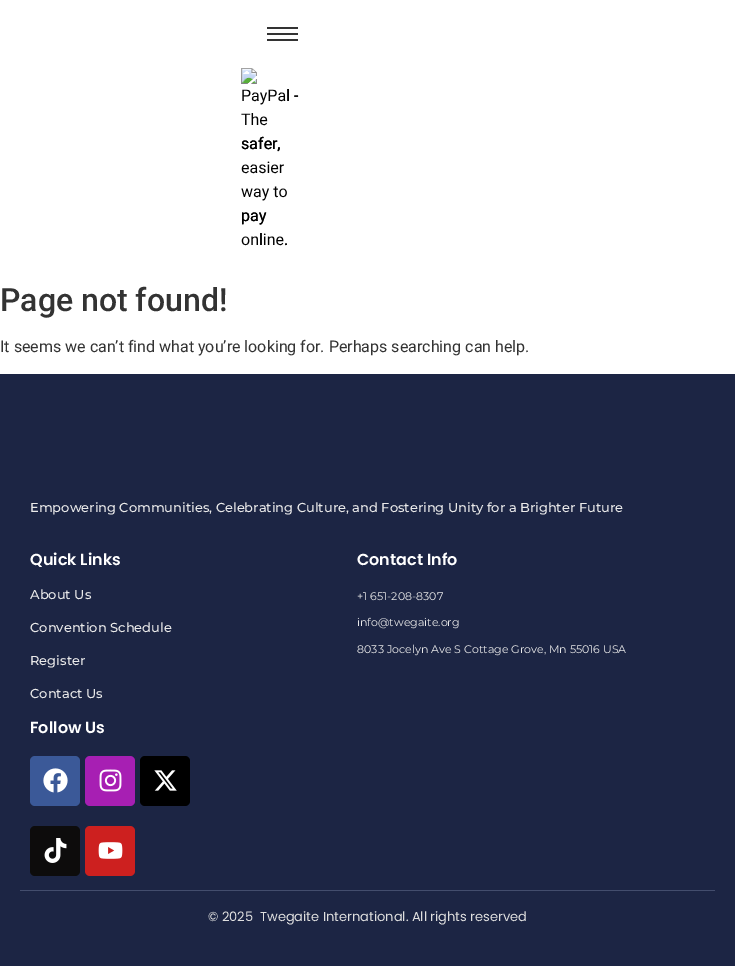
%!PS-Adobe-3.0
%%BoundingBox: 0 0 735 973
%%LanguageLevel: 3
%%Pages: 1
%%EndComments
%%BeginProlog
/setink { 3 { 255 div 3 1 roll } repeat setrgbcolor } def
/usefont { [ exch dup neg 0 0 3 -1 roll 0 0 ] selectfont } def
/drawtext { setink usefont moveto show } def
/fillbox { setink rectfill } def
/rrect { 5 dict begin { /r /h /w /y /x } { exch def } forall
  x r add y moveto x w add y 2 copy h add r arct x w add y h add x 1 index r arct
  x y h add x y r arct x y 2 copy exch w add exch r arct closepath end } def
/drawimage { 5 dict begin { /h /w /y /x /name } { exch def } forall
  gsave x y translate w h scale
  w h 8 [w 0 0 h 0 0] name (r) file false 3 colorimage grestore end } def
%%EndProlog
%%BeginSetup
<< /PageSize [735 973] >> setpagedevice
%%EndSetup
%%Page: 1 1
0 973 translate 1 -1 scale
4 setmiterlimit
0 0 735 973 255 255 255 fillbox
267 27 31 2 51 51 51 fillbox
267 33 31 2 51 51 51 fillbox
267 39 31 2 51 51 51 fillbox
(assets/img1.rgb) 241 68 58 178 drawimage
(l -) 286 101 /Roboto-Regular 16 0 0 0 drawtext
(safer,) 241 149 /Roboto-Regular 16 0 0 0 drawtext
(pay) 241 221 /Roboto-Regular 16 0 0 0 drawtext
(l) 259 245 /Roboto-Regular 16 0 0 0 drawtext
(.) 284 245 /Roboto-Regular 16 0 0 0 drawtext
(Page not found!) 0 311 /Roboto-Medium 32 51 51 51 drawtext
(It seems we can’t find what you’re looking for. Perhaps searching can help.) 0 352 /Roboto-Regular 16 51 51 51 drawtext
0 374 735 592 28 37 68 fillbox
(Empowering Communities, Celebrating Culture, and Fostering Unity for a Brighter Future) 30 512 /Montserrat-Medium 13 233 233 233 drawtext
(Quick Links) 30 565 /Poppins-SemiBold 16 255 255 255 drawtext
(About Us) 30 599 /Montserrat-Medium 13 233 233 233 drawtext
(Convention Schedule) 30 632 /Montserrat-Medium 13 233 233 233 drawtext
(Register) 30 665 /Montserrat-Medium 13 233 233 233 drawtext
(Contact Us) 30 698 /Montserrat-Medium 13 233 233 233 drawtext
(Contact Info) 357 565 /Poppins-SemiBold 16 255 255 255 drawtext
(+1 651-208-8307) 357 600 /Montserrat-Regular 11 233 233 233 drawtext
(info@twegaite.org) 357 626 /Montserrat-Regular 11 233 233 233 drawtext
(8033 Jocelyn Ave S Cottage Grove, Mn 55016 USA) 357 653 /Montserrat-Regular 11 233 233 233 drawtext
(Follow Us) 30 733 /Poppins-SemiBold 16 255 255 255 drawtext
59 89 152 setink
30 756 50 50 5 rrect fill
(assets/img2.rgb) 43 768 25 25 drawimage
167 31 179 setink
85 756 50 50 5 rrect fill
(assets/img3.rgb) 99 769 23 23 drawimage
0 0 0 setink
140 756 50 50 5 rrect fill
(assets/img4.rgb) 154 770 23 21 drawimage
13 12 12 setink
30 826 50 50 5 rrect fill
(assets/img5.rgb) 44 838 23 25 drawimage
205 32 31 setink
85 826 50 50 5 rrect fill
(assets/img6.rgb) 98 842 25 17 drawimage
20 890 695 1 67 77 109 fillbox
(© 2025  Twegaite International. All rights reserved) 208 921 /Poppins-Regular 13 223 223 223 drawtext
showpage
%%EOF
